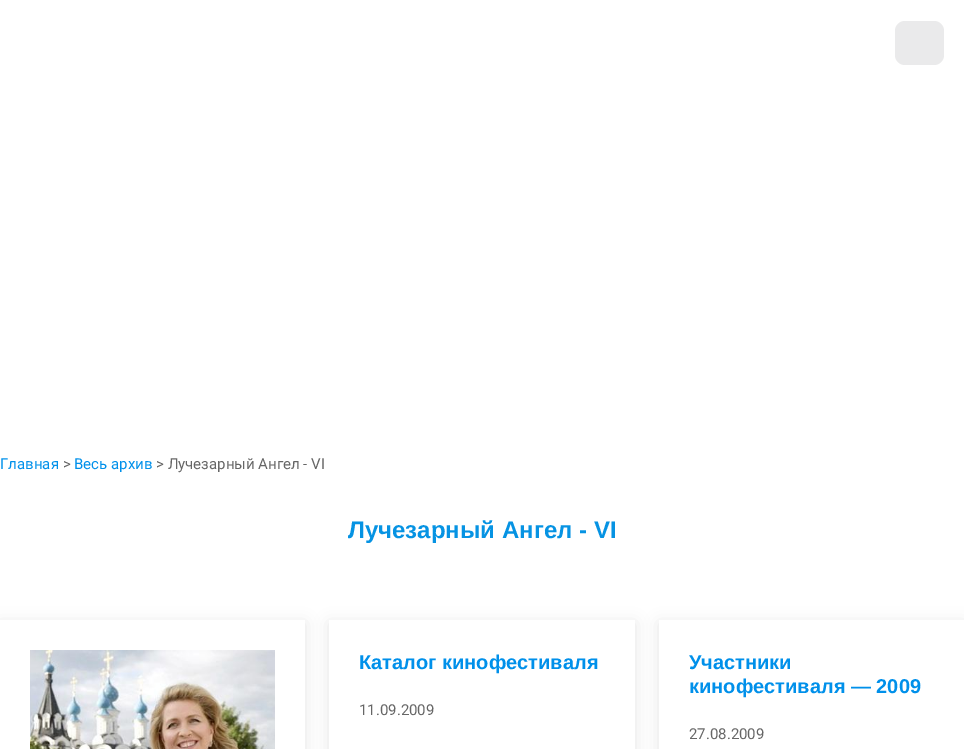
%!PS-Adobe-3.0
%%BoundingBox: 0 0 964 749
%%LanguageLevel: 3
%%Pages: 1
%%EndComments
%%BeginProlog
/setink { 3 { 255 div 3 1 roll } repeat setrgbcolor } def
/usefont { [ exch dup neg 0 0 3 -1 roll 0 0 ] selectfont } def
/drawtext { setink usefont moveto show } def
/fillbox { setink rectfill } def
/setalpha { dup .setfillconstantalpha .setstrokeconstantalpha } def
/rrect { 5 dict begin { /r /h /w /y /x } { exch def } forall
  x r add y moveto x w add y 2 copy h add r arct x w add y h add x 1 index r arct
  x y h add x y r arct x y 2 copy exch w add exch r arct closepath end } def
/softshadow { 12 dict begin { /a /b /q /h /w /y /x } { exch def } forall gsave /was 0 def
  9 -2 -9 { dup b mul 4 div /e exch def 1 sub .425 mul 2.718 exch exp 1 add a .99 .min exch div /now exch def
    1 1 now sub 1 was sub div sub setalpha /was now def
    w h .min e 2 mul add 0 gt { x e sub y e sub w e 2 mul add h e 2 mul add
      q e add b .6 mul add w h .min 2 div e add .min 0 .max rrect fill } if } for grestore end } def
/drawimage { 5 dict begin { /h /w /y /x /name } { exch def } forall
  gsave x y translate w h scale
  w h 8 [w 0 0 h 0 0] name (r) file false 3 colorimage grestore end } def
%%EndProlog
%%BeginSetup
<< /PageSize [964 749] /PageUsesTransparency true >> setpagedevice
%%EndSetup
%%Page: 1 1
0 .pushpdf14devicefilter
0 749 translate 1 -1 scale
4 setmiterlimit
0 0 964 749 255 255 255 fillbox
234 234 235 setink
895 21 49 44 10 rrect fill
(Главная) 0 469 /Roboto-Regular 15 0 144 234 drawtext
(>) 63 469 /Roboto-Regular 15 102 102 102 drawtext
(Весь архив) 74 469 /Roboto-Regular 15 0 144 234 drawtext
(> Лучезарный Ангел - VI) 156 469 /Roboto-Regular 15 102 102 102 drawtext
(Лучезарный Ангел - VI) 348 538 /LiberationSans-Bold 24 6 147 227 drawtext
gsave
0 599 moveto 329 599 lineto 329 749 lineto 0 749 lineto closepath 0 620 moveto 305 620 lineto 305 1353 lineto 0 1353 lineto closepath eoclip newpath
16 16 16 setink
0 623 305 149 0 7.5 0.1 softshadow
grestore
(assets/img1.rgb) 30 650 245 99 drawimage
gsave
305 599 moveto 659 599 lineto 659 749 lineto 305 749 lineto closepath 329 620 moveto 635 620 lineto 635 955 lineto 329 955 lineto closepath eoclip newpath
16 16 16 setink
329 623 306 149 0 7.5 0.1 softshadow
grestore
(Каталог кинофестиваля) 359 669 /LiberationSans-Bold 20 0 144 234 drawtext
(11.09.2009) 359 715 /Roboto-Regular 15 102 102 102 drawtext
gsave
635 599 moveto 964 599 lineto 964 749 lineto 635 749 lineto closepath 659 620 moveto 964 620 lineto 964 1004 lineto 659 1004 lineto closepath eoclip newpath
16 16 16 setink
659 623 305 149 0 7.5 0.1 softshadow
grestore
(Участники) 689 669 /LiberationSans-Bold 20 0 144 234 drawtext
(кинофестиваля — 2009) 689 693 /LiberationSans-Bold 20 0 144 234 drawtext
(27.08.2009) 689 739 /Roboto-Regular 15 102 102 102 drawtext
.poppdf14devicefilter showpage
%%EOF
